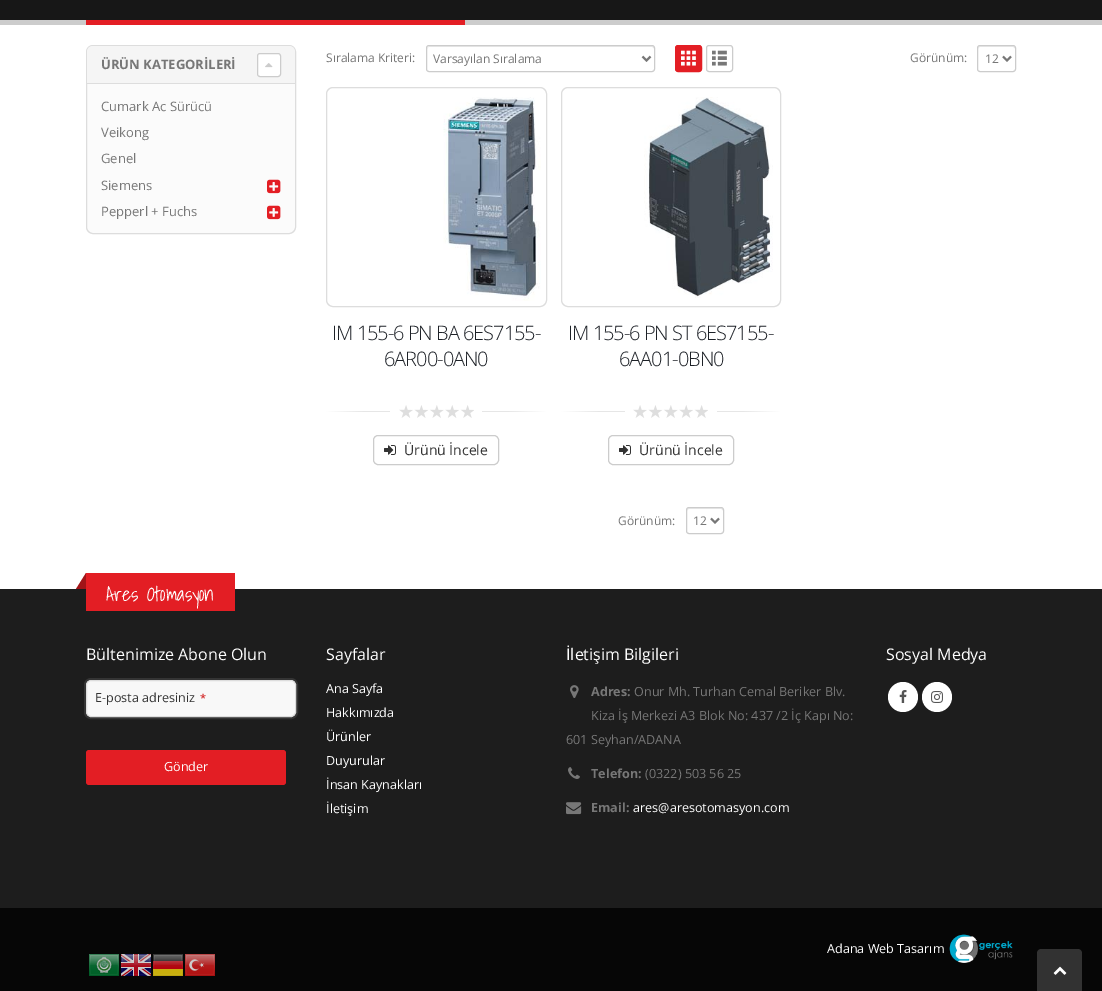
%!PS-Adobe-3.0
%%BoundingBox: 0 0 1102 991
%%LanguageLevel: 3
%%Pages: 1
%%EndComments
%%BeginProlog
/setink { 3 { 255 div 3 1 roll } repeat setrgbcolor } def
/usefont { [ exch dup neg 0 0 3 -1 roll 0 0 ] selectfont } def
/drawtext { setink usefont moveto show } def
/fillbox { setink rectfill } def
/disc { newpath 0 360 arc closepath } def
/rrect { 5 dict begin { /r /h /w /y /x } { exch def } forall
  x r add y moveto x w add y 2 copy h add r arct x w add y h add x 1 index r arct
  x y h add x y r arct x y 2 copy exch w add exch r arct closepath end } def
/drawimage { 5 dict begin { /h /w /y /x /name } { exch def } forall
  gsave x y translate w h scale
  w h 8 [w 0 0 h 0 0] name (r) file false 3 colorimage grestore end } def
%%EndProlog
%%BeginSetup
<< /PageSize [1102 991] >> setpagedevice
%%EndSetup
%%Page: 1 1
0 991 translate 1 -1 scale
4 setmiterlimit
0 0 1102 991 255 255 255 fillbox
0 0 1102 20 23 23 23 fillbox
0 20 1102 5 204 204 204 fillbox
86 20 379 5 227 30 36 fillbox
251 251 251 setink
86.5 45.5 209 188 6.5 rrect gsave fill grestore
221 221 221 setink
stroke
245 245 245 setink
93 46 moveto 289 46 lineto 292.5 46 295 48.5 295 52 curveto 295 84 lineto 87 84 lineto 87 52 lineto 87 48.5 89.5 46 93 46 curveto closepath fill
87 83 208 1 221 221 221 fillbox
(ÜRÜN KATEGORİLERİ) 101 69 /OpenSans-Bold 13 119 119 119 drawtext
255 255 255 setink
257.5 53.5 23 23 2.5 rrect gsave fill grestore
204 204 204 setink
stroke
(assets/img1.rgb) 265 63 8 5 drawimage
(Cumark Ac Sürücü) 101 111 /OpenSans-Regular 13 119 119 119 drawtext
(Veikong) 101 137 /OpenSans-Regular 13 119 119 119 drawtext
(Genel) 101 163 /OpenSans-Regular 13 119 119 119 drawtext
(Siemens) 101 190 /OpenSans-Regular 13 119 119 119 drawtext
(assets/img2.rgb) 267 179 14 15 drawimage
(Pepperl + Fuchs) 101 216 /OpenSans-Regular 13 119 119 119 drawtext
(assets/img2.rgb) 267 205 14 15 drawimage
(Sıralama Kriteri:) 326 62 /OpenSans-Regular 12 119 119 119 drawtext
236 236 236 setink
429 47 moveto 652 47 lineto 653 47 654 48 654 49 curveto 654 48 654 46 652 46 curveto 429 46 lineto 428 47 lineto 427 49 lineto 427 48 428 47 429 47 curveto closepath fill
204 204 204 setink
426.5 45.5 228 26 2.5 rrect stroke
119 119 119 setink
2 setlinewidth
642.5 56.5 moveto 646.5 60.5 lineto 650.5 56.5 lineto stroke
(Varsayılan Sıralama) 433 63 /OpenSans-Regular 12 119 119 119 drawtext
227 30 36 setink
675.5 45.5 26 26 2.5 rrect gsave fill grestore
1 setlinewidth
stroke
(assets/img3.rgb) 681 50 15 16 drawimage
204 204 204 setink
706.5 45.5 26 26 2.5 rrect stroke
(assets/img4.rgb) 712 50 15 16 drawimage
(Görünüm:) 910 62 /OpenSans-Regular 12 119 119 119 drawtext
236 236 236 setink
980 47 moveto 1013 47 lineto 1014 47 1015 48 1015 49 curveto 1015 44.5 1011.5 46 1007.5 46 curveto 985.5 46 lineto 981.5 46 978 44.5 978 49 curveto 978 48 979 47 980 47 curveto closepath fill
204 204 204 setink
977.5 45.5 38 26 2.5 rrect stroke
119 119 119 setink
2 setlinewidth
1003 56.5 moveto 1007 60.5 lineto 1011 56.5 lineto stroke
(12) 985 63 /OpenSans-Regular 12 119 119 119 drawtext
221 221 221 setink
1 setlinewidth
326.5 87.5 220 219 6.5 rrect stroke
(assets/img5.rgb) 443 97 98 204 drawimage
/OpenSans-Light 20 usefont
29 33 39 setink
332 340 moveto -1 0 (IM 155-6 PN BA 6ES7155-) ashow
384 366 moveto -1 0 (6AR00-0AN0) ashow
gsave 326 411 moveto 390 411 lineto 390 412 lineto 326 412 lineto closepath clip newpath
<< /ShadingType 2 /ColorSpace /DeviceRGB /Coords [390 412 326 412] /Extend [true true] /Function << /FunctionType 3 /Domain [0 1] /Functions [<< /FunctionType 2 /Domain [0 1] /C0 [0.902 0.902 0.902] /C1 [0.902 0.902 0.902] /N 1 >> << /FunctionType 2 /Domain [0 1] /C0 [0.902 0.902 0.902] /C1 [1 1 1] /N 1 >>] /Bounds [0.4] /Encode [0 1 0 1] >> >> shfill grestore
(assets/img6.rgb) 399 405 75 13 drawimage
gsave 482 411 moveto 547 411 lineto 547 412 lineto 482 412 lineto closepath clip newpath
<< /ShadingType 2 /ColorSpace /DeviceRGB /Coords [482 412 547 412] /Extend [true true] /Function << /FunctionType 3 /Domain [0 1] /Functions [<< /FunctionType 2 /Domain [0 1] /C0 [0.902 0.902 0.902] /C1 [0.902 0.902 0.902] /N 1 >> << /FunctionType 2 /Domain [0 1] /C0 [0.902 0.902 0.902] /C1 [1 1 1] /N 1 >>] /Bounds [0.4] /Encode [0 1 0 1] >> >> shfill grestore
204 204 204 setink
373.5 435.5 125 29 4.5 rrect stroke
(assets/img7.rgb) 384 445 12 10 drawimage
(Ürünü İncele) 404 455 /OpenSans-Regular 14 51 51 51 drawtext
221 221 221 setink
561.5 87.5 219 219 6.5 rrect stroke
(assets/img8.rgb) 644 97 129 201 drawimage
/OpenSans-Light 20 usefont
29 33 39 setink
568 340 moveto -1 0 (IM 155-6 PN ST 6ES7155-) ashow
619 366 moveto -1 0 (6AA01-0BN0) ashow
gsave 561 411 moveto 625 411 lineto 625 412 lineto 561 412 lineto closepath clip newpath
<< /ShadingType 2 /ColorSpace /DeviceRGB /Coords [625 412 561 412] /Extend [true true] /Function << /FunctionType 3 /Domain [0 1] /Functions [<< /FunctionType 2 /Domain [0 1] /C0 [0.902 0.902 0.902] /C1 [0.902 0.902 0.902] /N 1 >> << /FunctionType 2 /Domain [0 1] /C0 [0.902 0.902 0.902] /C1 [1 1 1] /N 1 >>] /Bounds [0.4] /Encode [0 1 0 1] >> >> shfill grestore
(assets/img6.rgb) 633 405 75 13 drawimage
gsave 717 411 moveto 781 411 lineto 781 412 lineto 717 412 lineto closepath clip newpath
<< /ShadingType 2 /ColorSpace /DeviceRGB /Coords [717 412 781 412] /Extend [true true] /Function << /FunctionType 3 /Domain [0 1] /Functions [<< /FunctionType 2 /Domain [0 1] /C0 [0.902 0.902 0.902] /C1 [0.902 0.902 0.902] /N 1 >> << /FunctionType 2 /Domain [0 1] /C0 [0.902 0.902 0.902] /C1 [1 1 1] /N 1 >>] /Bounds [0.4] /Encode [0 1 0 1] >> >> shfill grestore
204 204 204 setink
608.5 435.5 125 29 4.5 rrect stroke
(assets/img7.rgb) 619 445 12 10 drawimage
(Ürünü İncele) 639 455 /OpenSans-Regular 14 51 51 51 drawtext
(Görünüm:) 618 525 /OpenSans-Regular 12 119 119 119 drawtext
236 236 236 setink
689 509 moveto 721 509 lineto 722 509 723 510 723 511 curveto 723 506.5 719.5 508 715.5 508 curveto 694.5 508 lineto 690.5 508 687 506.5 687 511 curveto 687 510 688 509 689 509 curveto closepath fill
204 204 204 setink
686.5 507.5 37 26 2.5 rrect stroke
119 119 119 setink
2 setlinewidth
711 518.5 moveto 715 522.5 lineto 719 518.5 lineto stroke
(12) 693 525 /OpenSans-Regular 12 119 119 119 drawtext
0 589 1102 319 29 29 29 fillbox
86 573 149 38 227 30 36 fillbox
161 20 24 setink
86 573 moveto 86 589 lineto 76 589 lineto closepath fill
(Ares Otomasyon) 106 601 /ShadowsIntoLight-Light 20 255 255 255 drawtext
(Bültenimize Abone Olun) 86 660 /OpenSans-Regular 16 255 255 255 drawtext
52 52 52 setink
85 679 212 39 6 rrect stroke
248 248 248 setink
86.5 680.5 209 36 4.5 rrect gsave fill grestore
221 221 221 setink
1 setlinewidth
stroke
(E-posta adresiniz) 95 702 /OpenSans-Regular 12.6 51 51 51 drawtext
(*) 200 702 /OpenSans-Regular 11 204 1 1 drawtext
227 30 36 setink
86 750 200 35 3 rrect fill
(Gönder) 164 771 /OpenSans-Regular 12.6 255 255 255 drawtext
(Sayfalar) 326 660 /OpenSans-Regular 16 255 255 255 drawtext
(Ana Sayfa) 326 693 /OpenSans-Regular 12.6 255 255 255 drawtext
(Hakkımızda) 326 717 /OpenSans-Regular 12.6 255 255 255 drawtext
(Ürünler) 326 741 /OpenSans-Regular 12.6 255 255 255 drawtext
(Duyurular) 326 765 /OpenSans-Regular 12.6 255 255 255 drawtext
(İnsan Kaynakları) 326 789 /OpenSans-Regular 12.6 255 255 255 drawtext
(İletişim) 326 813 /OpenSans-Regular 12.6 255 255 255 drawtext
(İletişim Bilgileri) 566 660 /OpenSans-Regular 16 255 255 255 drawtext
(assets/img9.rgb) 570 685 9 13 drawimage
(Adres:) 591 696 /OpenSans-Bold 12.6 119 119 119 drawtext
(Onur Mh. Turhan Cemal Beriker Blv.) 634 696 /OpenSans-Regular 12.6 119 119 119 drawtext
(Kiza İş Merkezi A3 Blok No: 437 /2 İç Kapı No:) 591 720 /OpenSans-Regular 12.6 119 119 119 drawtext
(601 Seyhan/ADANA) 566 744 /OpenSans-Regular 12.6 119 119 119 drawtext
(assets/img10.rgb) 568 767 12 12 drawimage
(Telefon:) 591 778 /OpenSans-Bold 12.6 119 119 119 drawtext
(\(0322\) 503 56 25) 645 778 /OpenSans-Regular 12.6 119 119 119 drawtext
(assets/img11.rgb) 566 802 16 13 drawimage
(Email:) 591 812 /OpenSans-Bold 12.6 119 119 119 drawtext
(ares@aresotomasyon.com) 633 812 /OpenSans-Regular 12.6 255 255 255 drawtext
(Sosyal Medya) 886 660 /OpenSans-Regular 16 255 255 255 drawtext
903 697 15 disc fill
(assets/img12.rgb) 899 690 8 13 drawimage
937 697 15 disc fill
(assets/img13.rgb) 931 691 12 12 drawimage
0 908 1102 83 6 6 6 fillbox
(Adana Web Tasarım) 827 953 /OpenSans-Regular 12.6 255 255 255 drawtext
(assets/img14.rgb) 949 934 64 29 drawimage
(assets/img15.rgb) 89 954 30 22 drawimage
(assets/img16.rgb) 121 954 30 22 drawimage
(assets/img17.rgb) 153 954 30 22 drawimage
(assets/img18.rgb) 185 954 30 22 drawimage
50 50 50 setink
1041 949 moveto 1078 949 lineto 1080 949 1082 951 1082 953 curveto 1082 991 lineto 1037 991 lineto 1037 953 lineto 1037 951 1039 949 1041 949 curveto closepath fill
(assets/img19.rgb) 1053 966 14 9 drawimage
showpage
%%EOF
